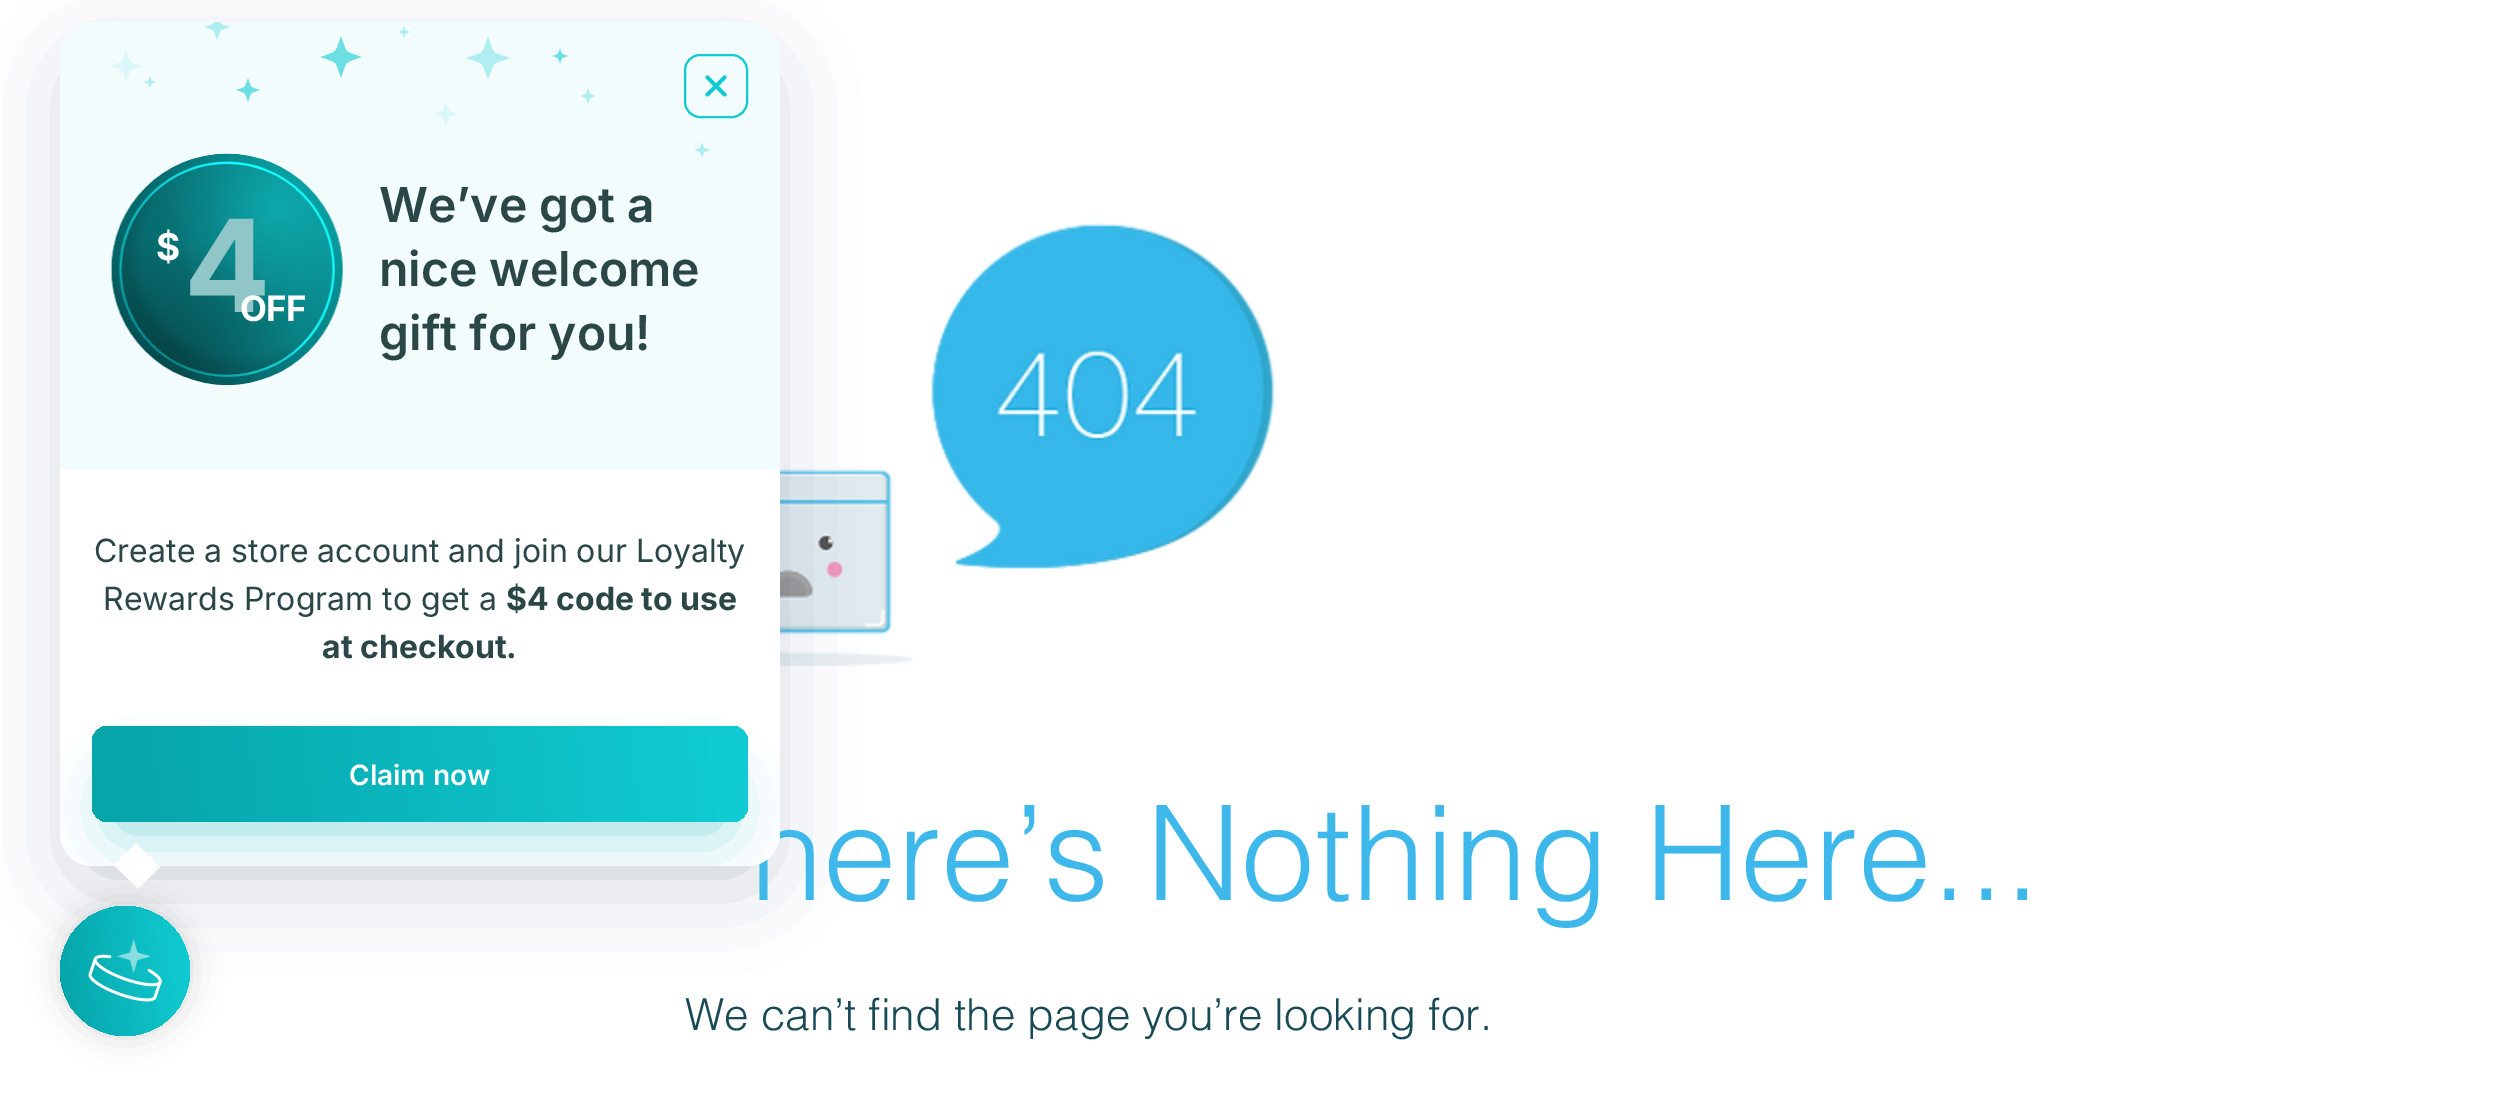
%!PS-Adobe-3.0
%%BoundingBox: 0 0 2501 1095
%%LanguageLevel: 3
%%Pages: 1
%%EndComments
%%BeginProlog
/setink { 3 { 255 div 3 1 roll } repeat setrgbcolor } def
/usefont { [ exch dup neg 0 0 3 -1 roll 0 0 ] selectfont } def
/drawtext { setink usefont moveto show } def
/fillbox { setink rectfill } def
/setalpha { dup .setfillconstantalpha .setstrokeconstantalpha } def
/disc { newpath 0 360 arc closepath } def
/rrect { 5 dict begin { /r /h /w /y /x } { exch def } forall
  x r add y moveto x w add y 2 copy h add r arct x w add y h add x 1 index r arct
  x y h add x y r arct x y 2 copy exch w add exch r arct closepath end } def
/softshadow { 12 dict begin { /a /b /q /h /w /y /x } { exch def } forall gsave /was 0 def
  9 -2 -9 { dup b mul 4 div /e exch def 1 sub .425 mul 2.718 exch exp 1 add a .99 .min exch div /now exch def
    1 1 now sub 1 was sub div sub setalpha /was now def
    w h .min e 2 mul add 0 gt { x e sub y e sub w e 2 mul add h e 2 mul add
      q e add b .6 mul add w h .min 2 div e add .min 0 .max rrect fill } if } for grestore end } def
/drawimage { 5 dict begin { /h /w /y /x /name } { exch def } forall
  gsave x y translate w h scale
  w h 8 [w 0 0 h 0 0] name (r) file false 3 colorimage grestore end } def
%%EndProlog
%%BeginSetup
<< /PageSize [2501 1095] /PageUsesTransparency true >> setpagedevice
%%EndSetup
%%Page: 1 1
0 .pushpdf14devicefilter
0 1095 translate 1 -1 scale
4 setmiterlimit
0 0 2501 1095 255 255 255 fillbox
(assets/img5.rgb) 780 223 495 444 drawimage
4 33 67 setink
86 76 668 792 6 48 0.26 softshadow
(here’s Nothing Here...) 750 900 /helvetica-Light 132 62 184 234 drawtext
255 255 255 setink
60 22 720 844 32 rrect fill
243 252 253 setink
92 22 moveto 748 22 lineto 765.5 22 780 36.5 780 54 curveto 780 470 lineto 60 470 lineto 60 54 lineto 60 36.5 74.5 22 92 22 curveto closepath fill
(assets/img2.rgb) 111 22 599 136 drawimage
16 203 209 setink
2 setlinewidth
685 55 62 62 15 rrect stroke
(assets/img1.rgb) 705 75 22 22 drawimage
(assets/img3.rgb) 111 153 233 233 drawimage
/Inter-Bold 37 usefont
255 255 255 setink
156 260 moveto 1 0 ($) ashow
/Inter-Bold 128 usefont
144 198 199 setink
184 312 moveto -5 0 (4) ashow
/Inter-Bold 35 usefont
255 255 255 setink
240 321 moveto -1 0 (OFF) ashow
(We’ve got a) 379 222 /Inter-SemiBold 48 42 70 71 drawtext
(nice welcome) 379 286 /Inter-SemiBold 48 42 70 71 drawtext
(gift for you!) 379 350 /Inter-SemiBold 48 42 70 71 drawtext
(Create a store account and join our Loyalty) 94 562 /Inter-Regular 32 42 70 71 drawtext
(Rewards Program to get a) 103 610 /Inter-Regular 32 42 70 71 drawtext
($4 code to use) 506 610 /Inter-Bold 32 42 70 71 drawtext
(at checkout.) 322 658 /Inter-Bold 32 42 70 71 drawtext
gsave
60 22 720 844 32 rrect clip newpath
10 177 183 setink
120 788 600 40 0 32 0.5 softshadow
grestore
gsave 92 726 656 96 16 rrect clip newpath
<< /ShadingType 2 /ColorSpace /DeviceRGB /Coords [749 738 91 810] /Extend [true true] /Function << /FunctionType 3 /Domain [0 1] /Functions [<< /FunctionType 2 /Domain [0 1] /C0 [0.063 0.796 0.82] /C1 [0.063 0.796 0.82] /N 1 >> << /FunctionType 2 /Domain [0 1] /C0 [0.063 0.796 0.82] /C1 [0.024 0.647 0.667] /N 1 >> << /FunctionType 2 /Domain [0 1] /C0 [0.024 0.647 0.667] /C1 [0.024 0.647 0.667] /N 1 >>] /Bounds [0.05 0.97] /Encode [0 1 0 1 0 1] >> >> shfill grestore
(Claim now) 349 785 /Inter-SemiBold 28 255 255 255 drawtext
136 843 moveto 160 867 lineto 138 889 lineto 114 865 lineto closepath fill
0 0 0 setink
60 906 130 130 65 16 0.15 softshadow
gsave 125 971 65 disc clip newpath
<< /ShadingType 2 /ColorSpace /DeviceRGB /Coords [196 963 54 979] /Extend [true true] /Function << /FunctionType 3 /Domain [0 1] /Functions [<< /FunctionType 2 /Domain [0 1] /C0 [0.063 0.796 0.82] /C1 [0.063 0.796 0.82] /N 1 >> << /FunctionType 2 /Domain [0 1] /C0 [0.063 0.796 0.82] /C1 [0.024 0.647 0.667] /N 1 >> << /FunctionType 2 /Domain [0 1] /C0 [0.024 0.647 0.667] /C1 [0.024 0.647 0.667] /N 1 >>] /Bounds [0.05 0.97] /Encode [0 1 0 1 0 1] >> >> shfill grestore
(assets/img4.rgb) 88 939 74 63 drawimage
(We can’t find the page you’re looking for.) 685 1030 /helvetica-Light 44 24 74 86 drawtext
.poppdf14devicefilter showpage
%%EOF
